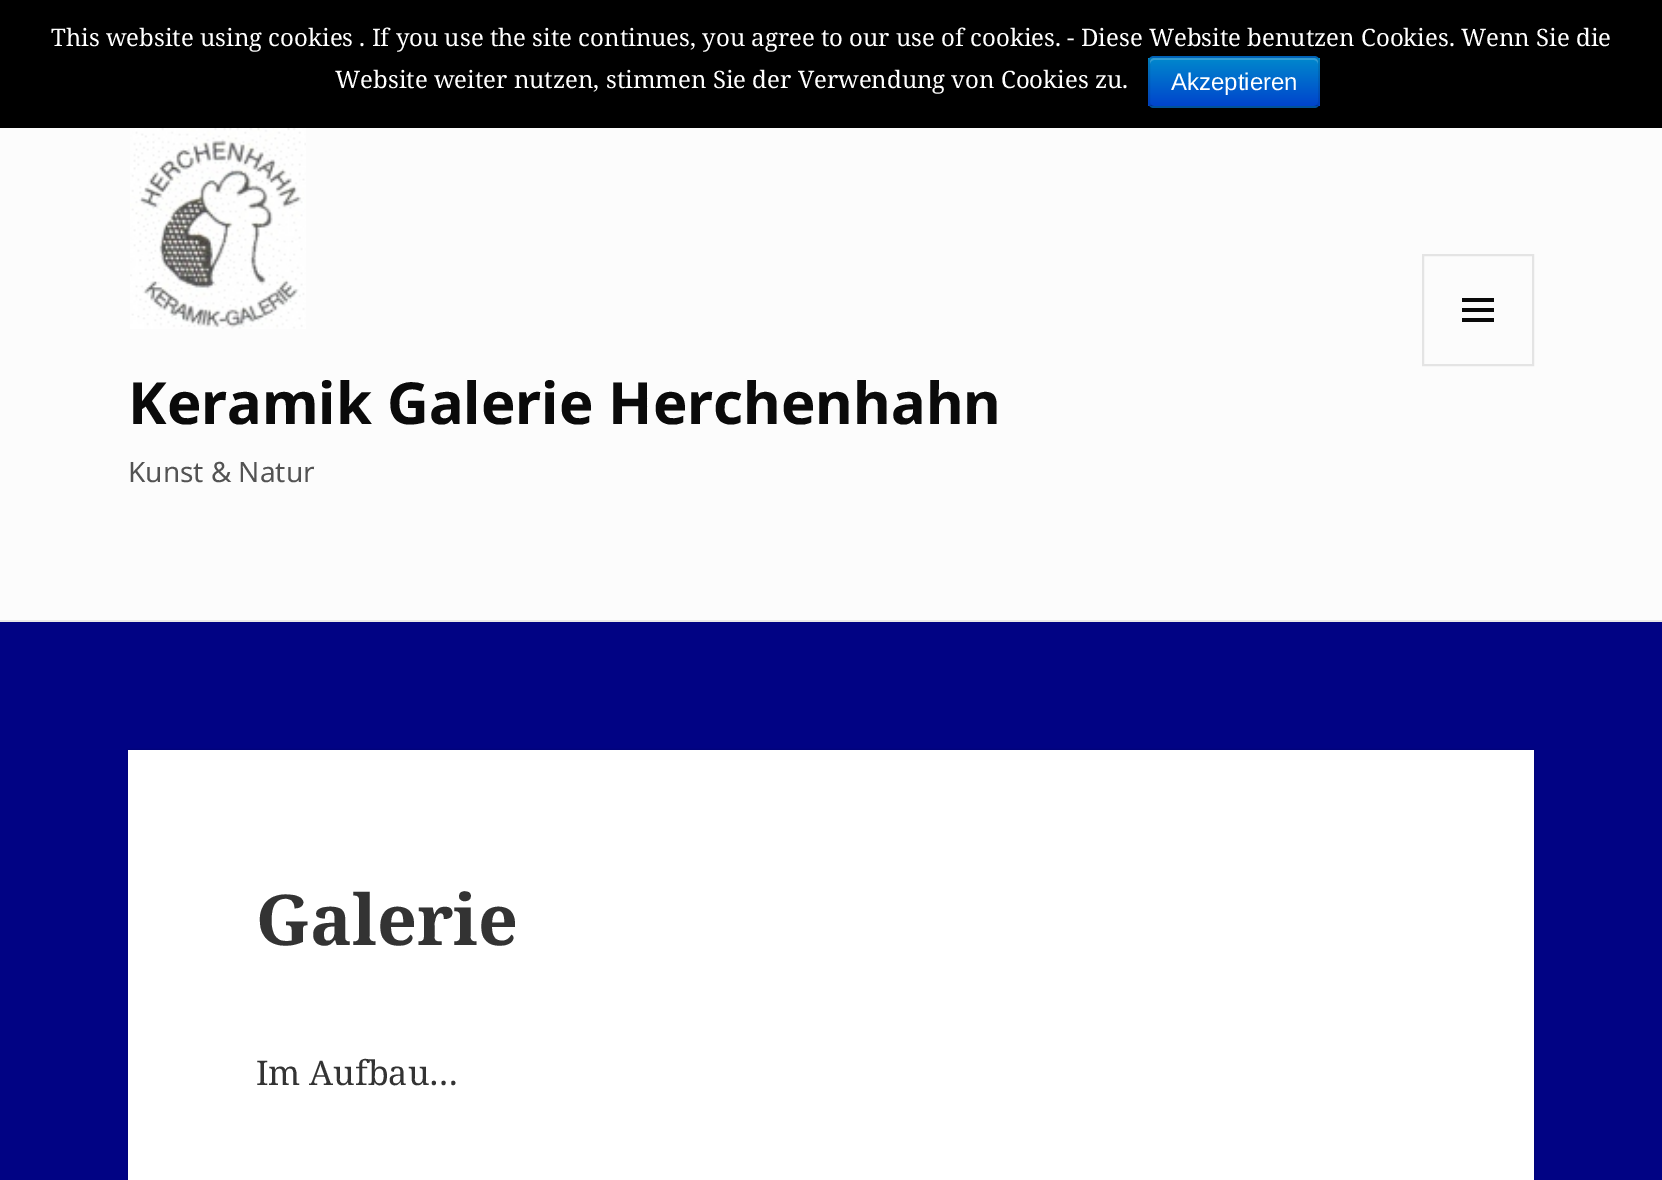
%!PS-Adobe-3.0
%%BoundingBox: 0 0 1662 1180
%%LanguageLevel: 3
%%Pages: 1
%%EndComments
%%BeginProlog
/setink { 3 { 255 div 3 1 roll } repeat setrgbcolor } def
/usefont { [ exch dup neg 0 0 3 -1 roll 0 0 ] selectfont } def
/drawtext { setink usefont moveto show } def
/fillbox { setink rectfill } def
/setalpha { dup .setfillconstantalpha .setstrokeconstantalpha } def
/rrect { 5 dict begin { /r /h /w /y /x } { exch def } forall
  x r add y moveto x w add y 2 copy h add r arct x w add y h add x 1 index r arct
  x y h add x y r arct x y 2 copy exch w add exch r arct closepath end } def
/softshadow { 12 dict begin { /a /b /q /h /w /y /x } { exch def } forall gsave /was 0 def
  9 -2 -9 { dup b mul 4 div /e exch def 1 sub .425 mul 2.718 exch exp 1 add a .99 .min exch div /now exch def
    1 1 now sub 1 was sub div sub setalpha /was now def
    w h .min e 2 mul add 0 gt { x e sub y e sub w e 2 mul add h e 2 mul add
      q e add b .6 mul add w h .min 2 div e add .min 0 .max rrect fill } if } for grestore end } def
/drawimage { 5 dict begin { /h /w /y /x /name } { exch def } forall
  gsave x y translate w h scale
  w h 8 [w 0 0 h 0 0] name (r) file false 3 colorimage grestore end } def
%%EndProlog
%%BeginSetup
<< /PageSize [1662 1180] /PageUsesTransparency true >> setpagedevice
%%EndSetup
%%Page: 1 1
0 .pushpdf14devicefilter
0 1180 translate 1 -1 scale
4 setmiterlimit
0 0 1662 1180 1 3 132 fillbox
0 0 1662 128 0 0 0 fillbox
(This website using cookies . If you use the site continues, you agree to our use of cookies. - Diese Website benutzen Cookies. Wenn Sie die) 51 46 /NotoSerif-Regular 24 255 255 255 drawtext
(Website weiter nutzen, stimmen Sie der Verwendung von Cookies zu.) 335 88 /NotoSerif-Regular 24 255 255 255 drawtext
0 109 204 setink
1148 56 172 52 6 rrect fill
gsave
1148 56 172 52 6 rrect clip newpath
gsave 1148 58 moveto 1320 58 lineto 1320 106 lineto 1148 106 lineto closepath clip newpath
<< /ShadingType 2 /ColorSpace /DeviceRGB /Coords [1234 58 1234 106] /Extend [true true] /Function << /FunctionType 2 /Domain [0 1] /C0 [0 0.533 0.8] /C1 [0 0.267 0.8] /N 1 >> >> shfill grestore
grestore
0.2 setalpha
255 255 255 setink
1154 60 moveto 1314 60 lineto 1316 60 1318 62 1318 64 curveto 1318 62 lineto 1318 60 1316 58 1314 58 curveto 1154 58 lineto 1152 58 1150 60 1150 62 curveto 1150 64 lineto 1150 62 1152 60 1154 60 curveto closepath fill
0.25 setalpha
0 0 0 setink
2 setlinewidth
1317.5 105.5 moveto 1316.5 106.5 1315.5 107 1314 107 curveto 1154 107 lineto 1152.5 107 1151.5 106.5 1150.5 105.5 curveto stroke
0.1 setalpha
1150.5 105.5 moveto 1149.5 104.5 1149 103.5 1149 102 curveto 1149 62 lineto 1149 60.5 1149.5 59.5 1150.5 58.5 curveto 1151.5 57.5 1152.5 57 1154 57 curveto 1314 57 lineto 1315.5 57 1316.5 57.5 1317.5 58.5 curveto 1318.5 59.5 1319 60.5 1319 62 curveto 1319 102 lineto 1319 103.5 1318.5 104.5 1317.5 105.5 curveto stroke
1 setalpha
(Akzeptieren) 1171 90 /LiberationSans-Regular 24 255 255 255 drawtext
0 128 1662 492 252 252 252 fillbox
0 620 1662 2 232 232 232 fillbox
(assets/img1.rgb) 130 128 176 201 drawimage
228 228 228 setink
1423 255 110 110 rectstroke
(assets/img2.rgb) 1462 298 32 24 drawimage
(Keramik Galerie Herchenhahn) 128 424 /NotoSans-Bold 58 10 10 10 drawtext
(Kunst & Natur) 128 482 /NotoSans-Regular 28 83 83 83 drawtext
0 0 0 setink
128 750 1406 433 0 1 0.15 softshadow
128 750 1406 430 255 255 255 fillbox
(Galerie) 256 945 /NotoSerif-Bold 70 51 51 51 drawtext
(Im Aufbau…) 256 1085 /NotoSerif-Regular 34 51 51 51 drawtext
.poppdf14devicefilter showpage
%%EOF
